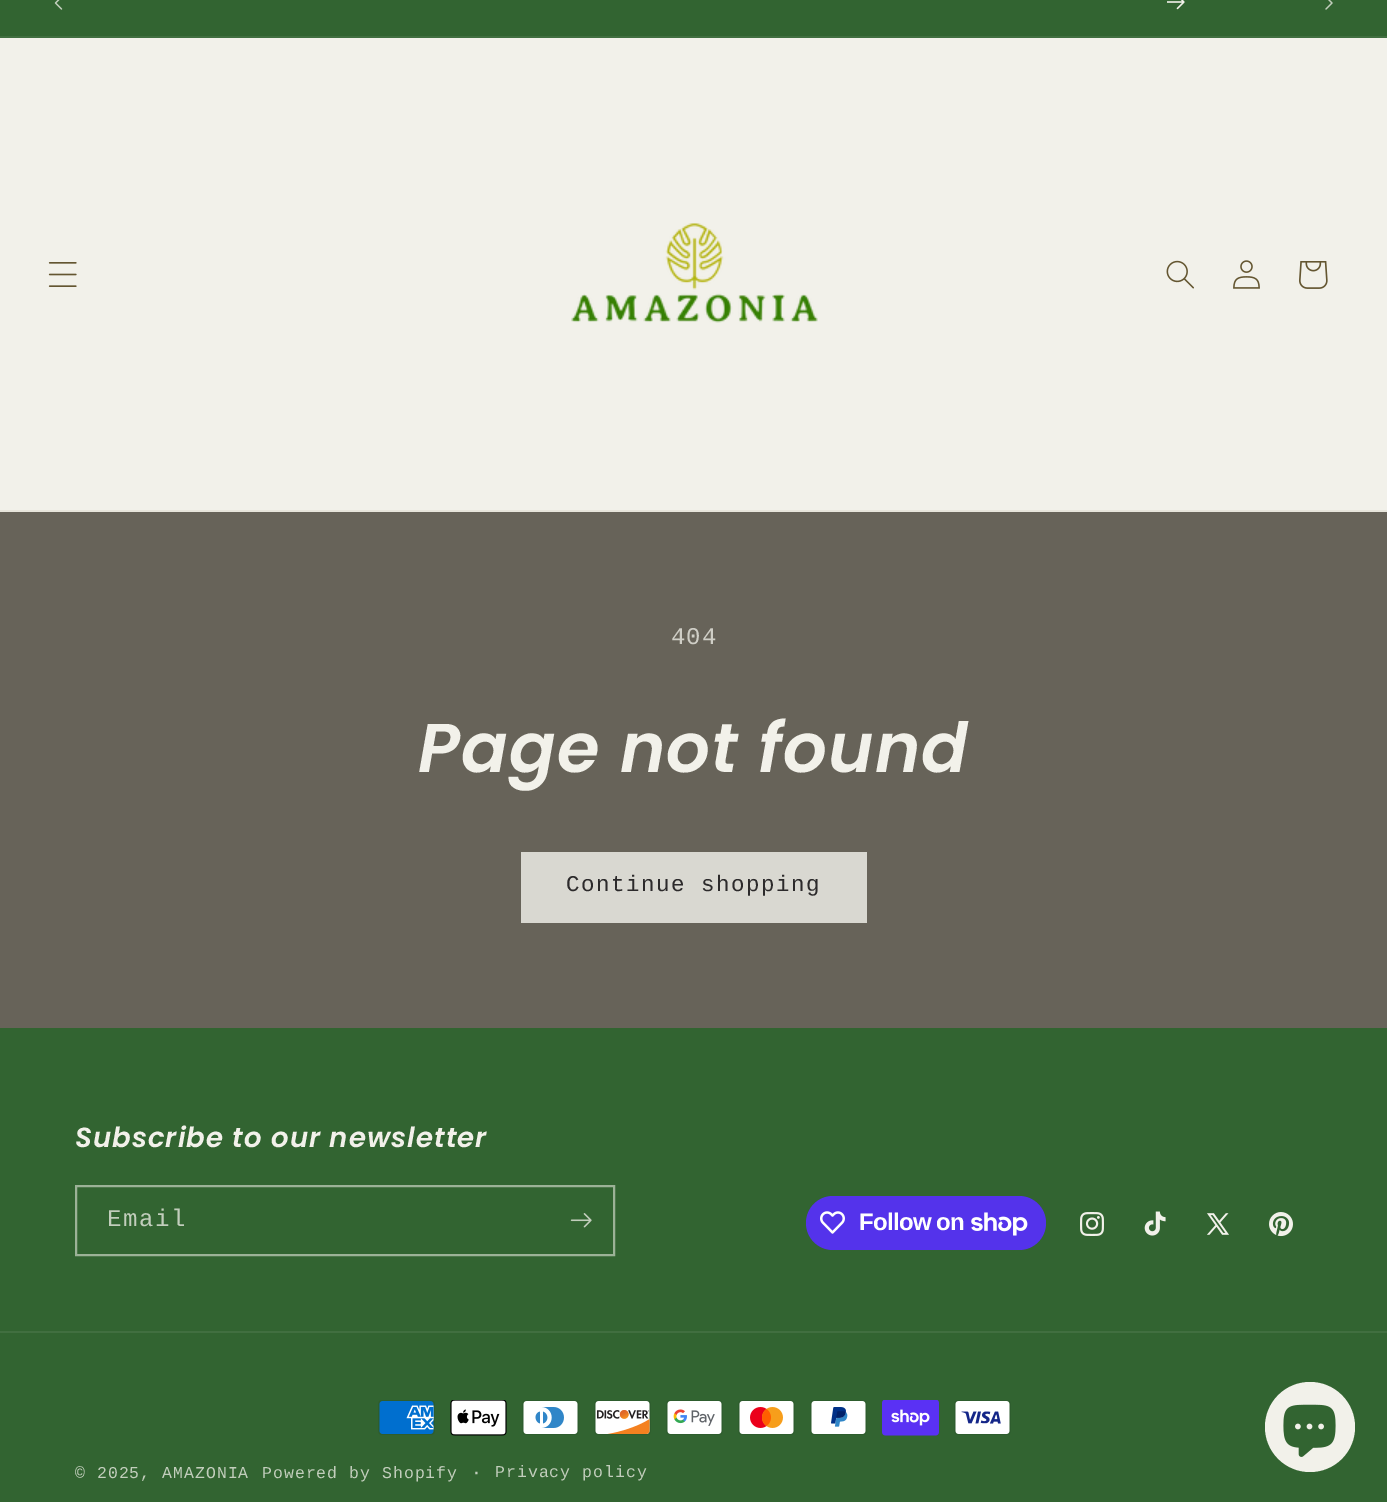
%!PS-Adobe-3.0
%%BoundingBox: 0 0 1387 1502
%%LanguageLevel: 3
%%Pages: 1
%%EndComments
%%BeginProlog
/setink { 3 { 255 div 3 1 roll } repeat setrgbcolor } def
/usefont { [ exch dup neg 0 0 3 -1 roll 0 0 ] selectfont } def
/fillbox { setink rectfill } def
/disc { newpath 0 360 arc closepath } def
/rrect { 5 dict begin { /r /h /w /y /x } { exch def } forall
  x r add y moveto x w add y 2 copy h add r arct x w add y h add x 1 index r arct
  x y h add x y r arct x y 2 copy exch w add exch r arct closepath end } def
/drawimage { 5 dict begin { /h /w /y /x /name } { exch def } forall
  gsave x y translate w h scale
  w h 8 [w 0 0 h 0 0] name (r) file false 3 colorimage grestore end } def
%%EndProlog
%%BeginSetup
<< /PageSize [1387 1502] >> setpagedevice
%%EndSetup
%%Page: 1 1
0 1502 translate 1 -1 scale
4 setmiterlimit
0 0 1387 1502 103 99 89 fillbox
0 0 1387 36 50 100 49 fillbox
0 36 1387 2 65 111 64 fillbox
(assets/img1.rgb) 54 0 9 10 drawimage
(assets/img2.rgb) 1167 0 18 10 drawimage
(assets/img3.rgb) 1325 0 8 10 drawimage
0 38 1387 472 242 241 234 fillbox
0 510 1387 2 231 229 219 fillbox
(assets/img4.rgb) 48 262 29 25 drawimage
(assets/img5.rgb) 571 223 247 100 drawimage
(assets/img6.rgb) 1166 260 28 29 drawimage
(assets/img7.rgb) 1233 260 27 29 drawimage
(assets/img8.rgb) 1299 261 29 28 drawimage
/LiberationMono-Regular 24 usefont
207 206 198 setink
671 644 moveto 1 0 (404) ashow
/Poppins-SemiBoldItalic 69 usefont
242 241 234 setink
418 772 moveto 1 0 (Page not found) ashow
521 852 346 71 217 216 209 fillbox
/LiberationMono-Regular 22.5 usefont
44 42 43 setink
566 891 moveto 1.5 0 (Continue shopping) ashow
0 1028 1387 474 50 100 49 fillbox
/Poppins-SemiBoldItalic 27.6 usefont
242 241 234 setink
75 1147 moveto 1 0 (Subscribe to our newsletter) ashow
156 178 151 setink
2 setlinewidth
76 1186 538 69 rectstroke
/LiberationMono-Regular 24 usefont
194 206 188 setink
107 1226 moveto 1.5 0 (Email) ashow
(assets/img9.rgb) 570 1213 22 15 drawimage
84 51 235 setink
806 1196 240 54 27 rrect fill
(assets/img10.rgb) 820 1211 25 23 drawimage
/LiberationSans-Bold 24 usefont
255 255 255 setink
859 1230 moveto -0.75 0 (Follow on) ashow
(assets/img11.rgb) 971 1212 57 24 drawimage
(assets/img12.rgb) 1080 1212 24 24 drawimage
(assets/img13.rgb) 1144 1211 22 25 drawimage
(assets/img14.rgb) 1207 1213 22 22 drawimage
(assets/img15.rgb) 1269 1212 24 25 drawimage
0 1331 1387 2 65 111 64 fillbox
(assets/img16.rgb) 378 1400 57 35 drawimage
(assets/img17.rgb) 450 1400 57 36 drawimage
(assets/img18.rgb) 522 1400 57 35 drawimage
(assets/img19.rgb) 594 1400 57 35 drawimage
(assets/img20.rgb) 666 1400 57 35 drawimage
(assets/img21.rgb) 738 1400 57 35 drawimage
(assets/img22.rgb) 810 1400 57 35 drawimage
(assets/img23.rgb) 882 1400 57 36 drawimage
(assets/img24.rgb) 954 1400 57 35 drawimage
/LiberationMono-Regular 16.5 usefont
194 206 188 setink
75 1478 moveto 1 0 (© 2025, AMAZONIA) ashow
262 1478 moveto 1 0 (Powered by Shopify) ashow
/LiberationMono-Regular 18 usefont
471 1478 moveto 1 0 (·) ashow
/LiberationMono-Regular 16.5 usefont
495 1477 moveto 1 0 (Privacy policy) ashow
242 241 234 setink
1310 1427 45 disc fill
(assets/img25.rgb) 1283 1404 53 53 drawimage
showpage
%%EOF
